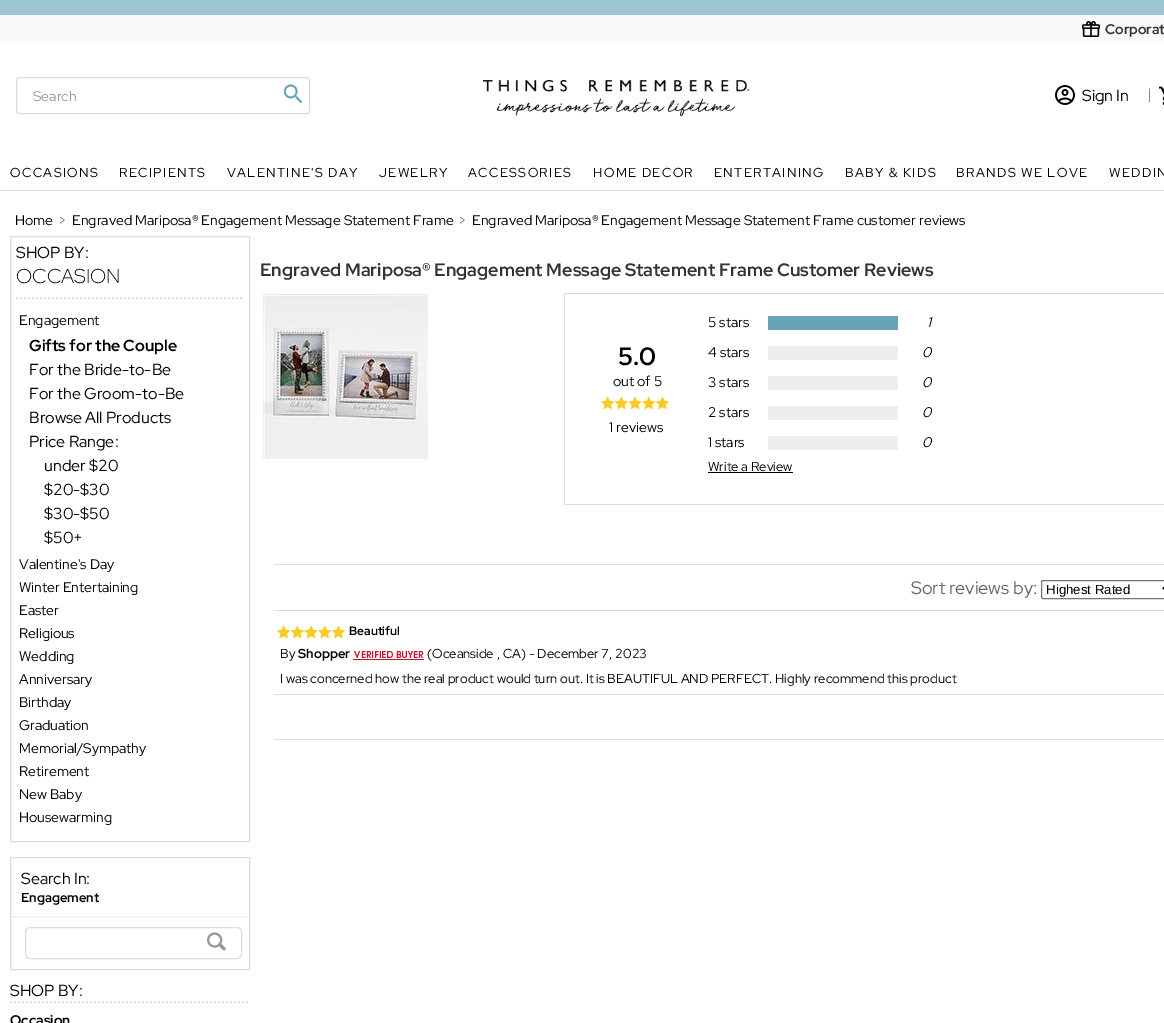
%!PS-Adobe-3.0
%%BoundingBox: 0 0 1164 1023
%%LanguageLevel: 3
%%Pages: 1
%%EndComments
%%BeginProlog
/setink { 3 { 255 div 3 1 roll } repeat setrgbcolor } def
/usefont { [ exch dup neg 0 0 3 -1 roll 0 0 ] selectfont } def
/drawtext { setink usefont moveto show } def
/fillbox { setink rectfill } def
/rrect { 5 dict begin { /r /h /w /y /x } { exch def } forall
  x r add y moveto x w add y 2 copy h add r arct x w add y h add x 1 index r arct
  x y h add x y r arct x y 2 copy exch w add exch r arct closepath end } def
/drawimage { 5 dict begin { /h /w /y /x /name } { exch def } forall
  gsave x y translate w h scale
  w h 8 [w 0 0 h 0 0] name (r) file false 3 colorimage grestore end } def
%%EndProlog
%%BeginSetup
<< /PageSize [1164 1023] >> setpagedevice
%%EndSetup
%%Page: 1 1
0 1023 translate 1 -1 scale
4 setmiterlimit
0 0 1164 1023 255 255 255 fillbox
0 0 1164 15 159 197 211 fillbox
0 15 1164 28 248 249 250 fillbox
(assets/img1.rgb) 1082 21 18 16 drawimage
(Corporat) 1105 34 /RedHatDisplay-Bold 14 51 51 51 drawtext
221 221 221 setink
16.5 77.5 293 36 2.5 rrect stroke
(Search) 33 101 /RedHatDisplay-Regular 14 153 153 153 drawtext
(assets/img2.rgb) 283 84 19 19 drawimage
(assets/img3.rgb) 483 80 267 37 drawimage
(assets/img4.rgb) 1055 85 20 20 drawimage
(Sign In) 1082 101 /RedHatDisplay-Regular 16 0 0 0 drawtext
(|) 1148 99 /LiberationSerif-Regular 15 102 102 102 drawtext
(assets/img5.rgb) 1159 86 5 20 drawimage
0 190 1164 1 221 221 221 fillbox
/RedHatDisplay-Regular 13 usefont
0 0 0 setink
10 177 moveto 1.4 0 (OCCASIONS) ashow
119 177 moveto 1.4 0 (RECIPIENTS) ashow
227 177 moveto 1.4 0 (VALENTINE'S DAY) ashow
379 177 moveto 1.4 0 (JEWELRY) ashow
468 177 moveto 1.4 0 (ACCESSORIES) ashow
593 177 moveto 1.4 0 (HOME DECOR) ashow
714 177 moveto 1.4 0 (ENTERTAINING) ashow
845 177 moveto 1.4 0 (BABY & KIDS) ashow
956 177 moveto 1.4 0 (BRANDS WE LOVE) ashow
1109 177 moveto 1.4 0 (WEDDIN) ashow
(Home) 15 225 /RedHatDisplay-Regular 14 0 0 0 drawtext
(>) 58 225 /RedHatDisplay-Regular 14 102 102 102 drawtext
(Engraved Mariposa® Engagement Message Statement Frame) 72 225 /RedHatDisplay-Regular 14 0 0 0 drawtext
(>) 458 225 /RedHatDisplay-Regular 14 102 102 102 drawtext
(Engraved Mariposa® Engagement Message Statement Frame customer reviews) 472 225 /RedHatDisplay-Regular 14 0 0 0 drawtext
221 221 221 setink
10.5 236.5 239 605 rectstroke
2 setlinewidth
[2 2] 0 setdash
16 298 moveto 244 298 lineto stroke
(SHOP BY:) 16 258 /RedHatDisplay-Regular 16 0 0 0 drawtext
(OCCASION) 16 283 /RedHatDisplay-Light 20 0 0 0 drawtext
(Engagement) 19 325 /RedHatDisplay-Regular 14 0 0 0 drawtext
(Gifts for the Couple) 29 351 /RedHatDisplay-Bold 16 0 0 0 drawtext
(For the Bride-to-Be) 29 375 /RedHatDisplay-Regular 16 0 0 0 drawtext
(For the Groom-to-Be) 29 399 /RedHatDisplay-Regular 16 0 0 0 drawtext
(Browse All Products) 29 423 /RedHatDisplay-Regular 16 0 0 0 drawtext
(Price Range:) 29 447 /RedHatDisplay-Regular 16 0 0 0 drawtext
(under $20) 44 471 /RedHatDisplay-Regular 16 0 0 0 drawtext
($20-$30) 44 495 /RedHatDisplay-Regular 16 0 0 0 drawtext
($30-$50) 44 519 /RedHatDisplay-Regular 16 0 0 0 drawtext
($50+) 44 543 /RedHatDisplay-Regular 16 0 0 0 drawtext
(Valentine's Day) 19 569 /RedHatDisplay-Regular 14 0 0 0 drawtext
(Winter Entertaining) 19 592 /RedHatDisplay-Regular 14 0 0 0 drawtext
(Easter) 19 615 /RedHatDisplay-Regular 14 0 0 0 drawtext
(Religious) 19 638 /RedHatDisplay-Regular 14 0 0 0 drawtext
(Wedding) 19 661 /RedHatDisplay-Regular 14 0 0 0 drawtext
(Anniversary) 19 684 /RedHatDisplay-Regular 14 0 0 0 drawtext
(Birthday) 19 707 /RedHatDisplay-Regular 14 0 0 0 drawtext
(Graduation) 19 730 /RedHatDisplay-Regular 14 0 0 0 drawtext
(Memorial/Sympathy) 19 753 /RedHatDisplay-Regular 14 0 0 0 drawtext
(Retirement) 19 776 /RedHatDisplay-Regular 14 0 0 0 drawtext
(New Baby) 19 799 /RedHatDisplay-Regular 14 0 0 0 drawtext
(Housewarming) 19 822 /RedHatDisplay-Regular 14 0 0 0 drawtext
221 221 221 setink
1 setlinewidth
[] 0 setdash
10.5 857.5 239 112 rectstroke
(Search In:) 21 884 /RedHatDisplay-Regular 16 0 0 0 drawtext
221 221 221 setink
[1 1] 0 setdash
11 916.5 moveto 249 916.5 lineto stroke
(Engagement) 21 902 /RedHatDisplay-Bold 13 0 0 0 drawtext
221 221 221 setink
[] 0 setdash
25.5 927.5 216 31 4.5 rrect stroke
(assets/img6.rgb) 207 932 19 19 drawimage
(SHOP BY:) 10 996 /RedHatDisplay-Regular 16 0 0 0 drawtext
221 221 221 setink
2 setlinewidth
[2 2] 0 setdash
10 1002 moveto 250 1002 lineto stroke
(Occasion) 10 1025 /RedHatDisplay-Bold 14 0 0 0 drawtext
(Engraved Mariposa® Engagement Message Statement Frame Customer Reviews) 260 276 /RedHatDisplay-Bold 18 51 51 51 drawtext
(assets/img7.rgb) 263 294 165 165 drawimage
564 293 600 1 221 221 221 fillbox
564 504 600 1 221 221 221 fillbox
564 293 1 212 221 221 221 fillbox
(5.0) 618 365 /RedHatDisplay-Bold 25 0 0 0 drawtext
(out of 5) 613 386 /RedHatDisplay-Regular 14 0 0 0 drawtext
(assets/img8.rgb) 600 396 70 14 drawimage
(1 reviews) 609 432 /RedHatDisplay-Regular 14 0 0 0 drawtext
(5 stars) 708 327 /RedHatDisplay-Regular 14 0 0 0 drawtext
768 316 130 14 105 163 185 fillbox
(1) 927 327 /RedHatDisplay-Italic 14 0 0 0 drawtext
(4 stars) 708 357 /RedHatDisplay-Regular 14 0 0 0 drawtext
768 346 130 14 238 238 238 fillbox
(0) 922 357 /RedHatDisplay-Italic 14 0 0 0 drawtext
(3 stars) 708 387 /RedHatDisplay-Regular 14 0 0 0 drawtext
768 376 130 14 238 238 238 fillbox
(0) 922 387 /RedHatDisplay-Italic 14 0 0 0 drawtext
(2 stars) 708 417 /RedHatDisplay-Regular 14 0 0 0 drawtext
768 406 130 14 238 238 238 fillbox
(0) 922 417 /RedHatDisplay-Italic 14 0 0 0 drawtext
(1 stars) 708 447 /RedHatDisplay-Regular 14 0 0 0 drawtext
768 436 130 14 238 238 238 fillbox
(0) 922 447 /RedHatDisplay-Italic 14 0 0 0 drawtext
(Write a Review) 708 471 /RedHatDisplay-Regular 13 0 0 0 drawtext
708 472 85 1 0 0 0 fillbox
274 564 890 1 221 221 221 fillbox
274 610 890 1 221 221 221 fillbox
(Sort reviews by:) 911 594 /RedHatDisplay-Regular 18 102 102 102 drawtext
118 118 118 setink
1 setlinewidth
[] 0 setdash
1041.5 580.5 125 18 1.5 rrect stroke
0 0 0 setink
2 setlinewidth
1163 587.5 moveto 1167 591.5 lineto 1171 587.5 lineto stroke
(Highest Rated) 1046 594 /LiberationSans-Regular 13.25 0 0 0 drawtext
(assets/img8.rgb) 276 625 70 14 drawimage
(Beautiful) 349 635 /RedHatDisplay-Bold 12 0 0 0 drawtext
(By) 280 658 /RedHatDisplay-Regular 13 0 0 0 drawtext
(Shopper) 298 658 /RedHatDisplay-Bold 13 0 0 0 drawtext
(assets/img9.rgb) 353 651 71 9 drawimage
(\(Oceanside , CA\) - December 7, 2023) 427 658 /RedHatDisplay-Regular 13 0 0 0 drawtext
(I was concerned how the real product would turn out. It is BEAUTIFUL AND PERFECT. Highly recommend this product) 280 683 /RedHatDisplay-Regular 13 0 0 0 drawtext
274 694 890 1 221 221 221 fillbox
274 739 890 1 221 221 221 fillbox
showpage
%%EOF
